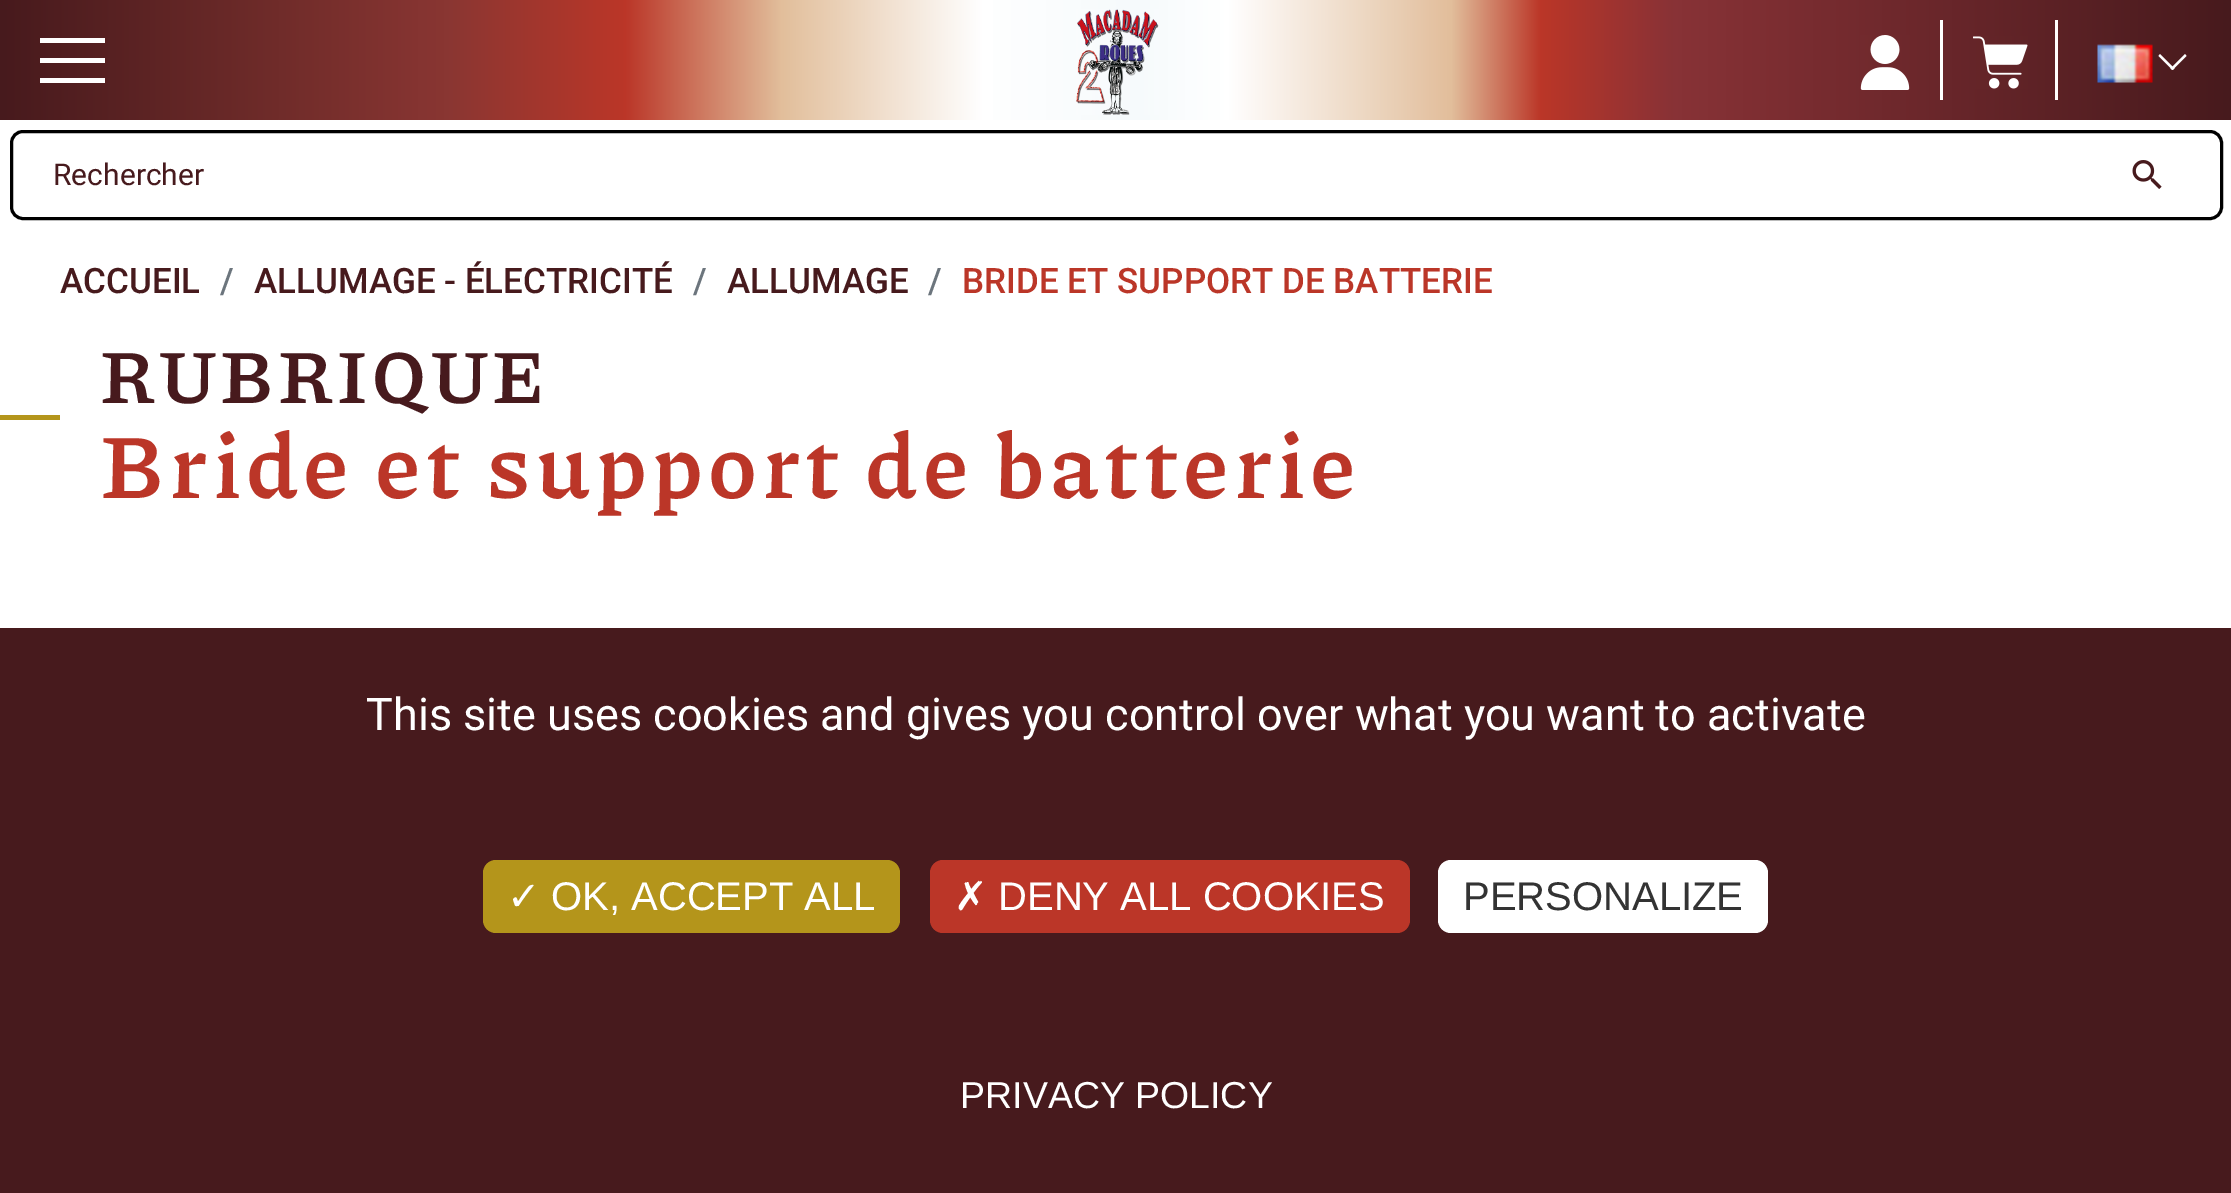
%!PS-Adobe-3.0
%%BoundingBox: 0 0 2231 1193
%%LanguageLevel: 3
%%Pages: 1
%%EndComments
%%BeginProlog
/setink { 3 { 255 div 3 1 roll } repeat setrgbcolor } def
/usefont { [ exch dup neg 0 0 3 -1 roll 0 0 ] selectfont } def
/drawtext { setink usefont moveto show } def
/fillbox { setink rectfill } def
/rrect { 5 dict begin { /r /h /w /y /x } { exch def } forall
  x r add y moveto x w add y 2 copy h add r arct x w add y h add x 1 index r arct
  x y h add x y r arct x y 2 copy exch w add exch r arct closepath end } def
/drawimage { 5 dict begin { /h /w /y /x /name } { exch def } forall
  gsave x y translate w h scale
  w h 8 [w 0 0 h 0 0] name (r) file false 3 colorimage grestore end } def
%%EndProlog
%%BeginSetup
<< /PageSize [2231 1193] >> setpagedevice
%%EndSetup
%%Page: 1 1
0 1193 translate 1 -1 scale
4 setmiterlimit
0 0 2231 1193 255 255 255 fillbox
gsave 0 0 moveto 2231 0 lineto 2231 120 lineto 0 120 lineto closepath clip newpath
<< /ShadingType 2 /ColorSpace /DeviceRGB /Coords [0 60 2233 60] /Extend [true true] /Function << /FunctionType 3 /Domain [0 1] /Functions [<< /FunctionType 2 /Domain [0 1] /C0 [0.278 0.102 0.114] /C1 [0.537 0.212 0.196] /N 1 >> << /FunctionType 2 /Domain [0 1] /C0 [0.537 0.212 0.196] /C1 [0.733 0.212 0.157] /N 1 >> << /FunctionType 2 /Domain [0 1] /C0 [0.733 0.212 0.157] /C1 [0.886 0.745 0.608] /N 1 >> << /FunctionType 2 /Domain [0 1] /C0 [0.886 0.745 0.608] /C1 [1 1 1] /N 1 >> << /FunctionType 2 /Domain [0 1] /C0 [1 1 1] /C1 [0.965 0.98 0.988] /N 1 >> << /FunctionType 2 /Domain [0 1] /C0 [0.965 0.98 0.988] /C1 [1 1 1] /N 1 >> << /FunctionType 2 /Domain [0 1] /C0 [1 1 1] /C1 [0.886 0.745 0.608] /N 1 >> << /FunctionType 2 /Domain [0 1] /C0 [0.886 0.745 0.608] /C1 [0.733 0.212 0.157] /N 1 >> << /FunctionType 2 /Domain [0 1] /C0 [0.733 0.212 0.157] /C1 [0.533 0.196 0.212] /N 1 >> << /FunctionType 2 /Domain [0 1] /C0 [0.533 0.196 0.212] /C1 [0.278 0.102 0.114] /N 1 >>] /Bounds [0.2 0.28 0.35 0.44 0.51 0.55 0.65 0.69 0.75] /Encode [0 1 0 1 0 1 0 1 0 1 0 1 0 1 0 1 0 1 0 1] >> >> shfill grestore
40 38 65 5 255 255 255 fillbox
40 58 65 5 255 255 255 fillbox
40 78 65 5 255 255 255 fillbox
(assets/img1.rgb) 1076 9 83 106 drawimage
(assets/img2.rgb) 1860 35 50 55 drawimage
1940 20 3 80 255 255 255 fillbox
(assets/img3.rgb) 1973 36 55 53 drawimage
2055 20 3 80 255 255 255 fillbox
(assets/img4.rgb) 2097 44 56 39 drawimage
2185 54 moveto 2186.5 56 lineto 2172.5 70 lineto 2170.5 68.5 lineto closepath fill
2160 54 moveto 2174.5 68.5 lineto 2172.5 70 lineto 2158.5 56 lineto closepath fill
0 0 0 setink
3 setlinewidth
11.5 131.5 2210 87 11.5 rrect stroke
(Rechercher) 53 185 /Roboto-Regular 30 71 26 29 drawtext
(assets/img5.rgb) 2132 160 30 29 drawimage
(ACCUEIL) 60 293 /Roboto-Medium 35 71 26 29 drawtext
(/) 220 293 /Roboto-Medium 35 108 117 125 drawtext
(ALLUMAGE - ÉLECTRICITÉ) 254 293 /Roboto-Medium 35 71 26 29 drawtext
(/) 693 293 /Roboto-Medium 35 108 117 125 drawtext
(ALLUMAGE) 727 293 /Roboto-Medium 35 71 26 29 drawtext
(/) 928 293 /Roboto-Medium 35 108 117 125 drawtext
(BRIDE ET SUPPORT DE BATTERIE) 962 293 /Roboto-Medium 35 187 54 40 drawtext
/Piazzolla-Bold 75 usefont
71 26 29 setink
100 403 moveto 3.5 0 (RUBRIQUE) ashow
0 415 60 5 180 149 27 fillbox
/Piazzolla-Bold 90 usefont
187 54 40 setink
100 498 moveto 5.4 0 (Bride et support de batterie) ashow
0 628 2231 565 71 26 29 fillbox
(This site uses cookies and gives you control over what you want to activate) 366 730 /Roboto-Regular 45 255 255 255 drawtext
180 149 27 setink
483 860 417 73 13 rrect fill
(✓) 507 910 /DejaVuSans-Regular 40 255 255 255 drawtext
(OK, ACCEPT ALL) 551 910 /LiberationSans-Regular 40 255 255 255 drawtext
187 54 40 setink
930 860 480 73 13 rrect fill
(✗) 954 910 /DejaVuSans-Regular 40 255 255 255 drawtext
(DENY ALL COOKIES) 998 910 /LiberationSans-Regular 40 255 255 255 drawtext
1438 860 330 73 13 rrect fill
(PERSONALIZE) 1463 910 /LiberationSans-Regular 40 51 51 51 drawtext
(PRIVACY POLICY) 960 1108 /LiberationSans-Regular 37.5 255 255 255 drawtext
showpage
%%EOF
